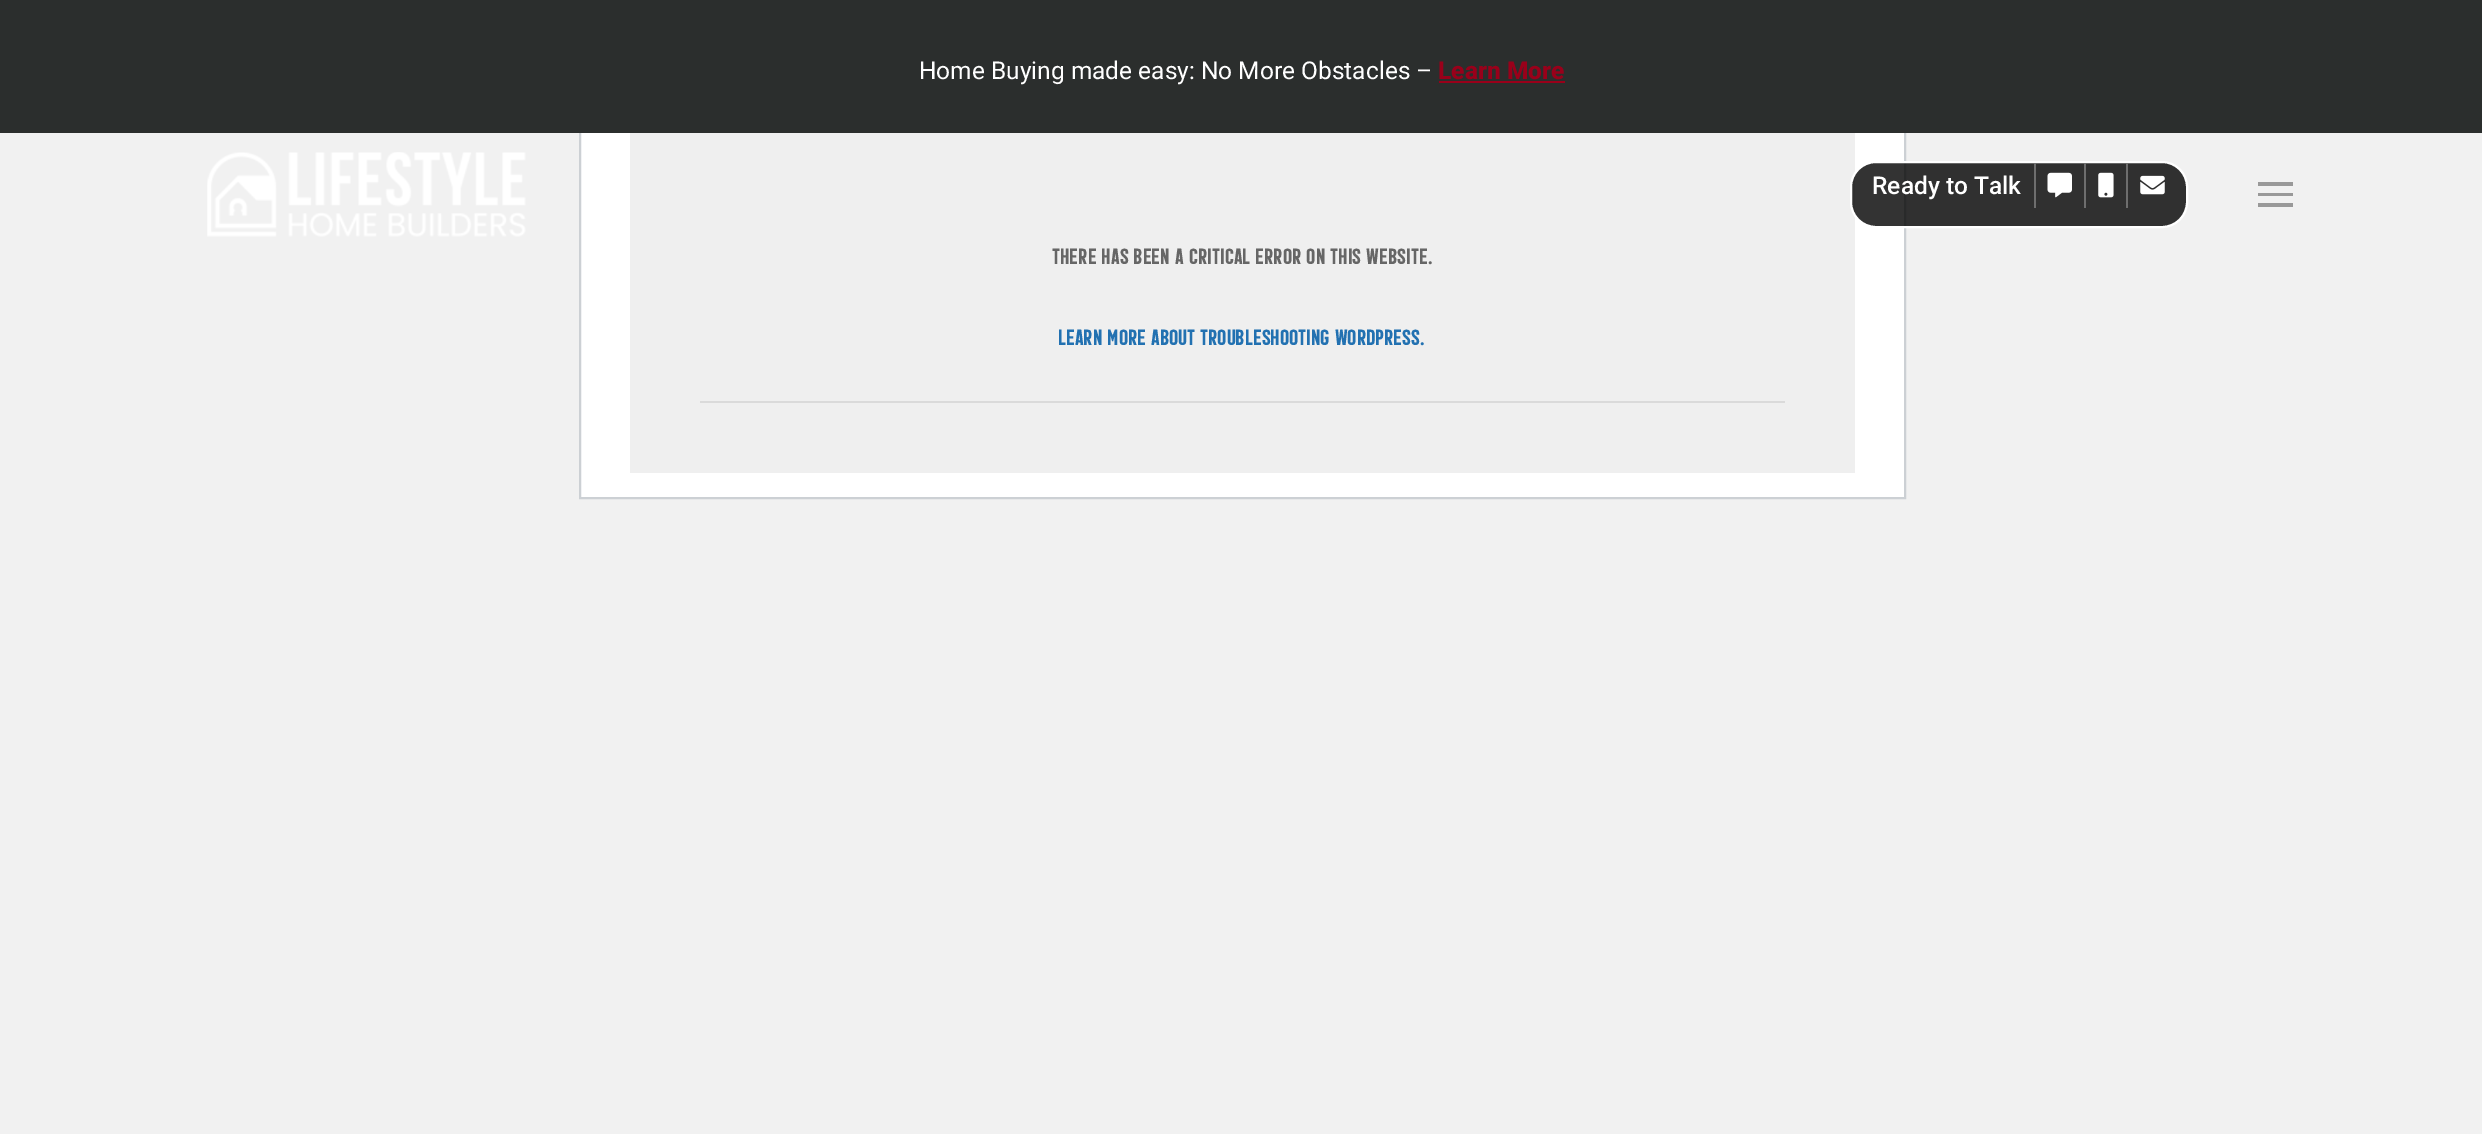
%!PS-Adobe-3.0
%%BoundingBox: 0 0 2482 1134
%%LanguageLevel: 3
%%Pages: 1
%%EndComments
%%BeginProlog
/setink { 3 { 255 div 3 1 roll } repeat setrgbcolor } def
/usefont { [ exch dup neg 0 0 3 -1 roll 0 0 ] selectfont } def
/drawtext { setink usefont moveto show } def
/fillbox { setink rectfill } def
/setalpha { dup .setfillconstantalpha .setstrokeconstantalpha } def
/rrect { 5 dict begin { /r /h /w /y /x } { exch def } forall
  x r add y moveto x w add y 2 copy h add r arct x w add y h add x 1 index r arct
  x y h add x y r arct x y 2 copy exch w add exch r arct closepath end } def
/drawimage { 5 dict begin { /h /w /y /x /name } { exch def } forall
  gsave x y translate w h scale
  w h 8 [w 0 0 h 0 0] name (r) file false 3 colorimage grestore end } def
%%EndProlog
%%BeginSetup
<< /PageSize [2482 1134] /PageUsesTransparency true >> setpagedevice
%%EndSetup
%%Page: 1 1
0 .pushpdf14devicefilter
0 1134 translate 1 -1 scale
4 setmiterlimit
0 0 2482 1134 241 241 241 fillbox
581 133 1323 364 255 255 255 fillbox
204 208 212 setink
2 setlinewidth
580 89 1325 409 rectstroke
0 0 2482 133 43 46 45 fillbox
(Home Buying made easy: No More Obstacles –) 919 79 /Roboto-Regular 24.5 255 255 255 drawtext
(Learn More) 1438 79 /Roboto-ExtraBold 24.5 153 0 26 drawtext
1439 81 126 2 153 0 26 fillbox
(assets/img1.rgb) 207 152 319 85 drawimage
630 133 1225 340 239 239 239 fillbox
0.8 setalpha
0 0 0 setink
1851 162 336 65 25 rrect fill
1 setalpha
255 255 255 setink
1851 162 336 65 25 rrect stroke
2034 163 2 45 110 110 110 fillbox
(Ready to Talk) 1872 194 /Roboto-Medium 24.5 255 255 255 drawtext
2084 163 2 45 110 110 110 fillbox
(assets/img2.rgb) 2047 172 25 26 drawimage
2126 163 2 45 110 110 110 fillbox
(assets/img3.rgb) 2098 172 16 26 drawimage
(assets/img4.rgb) 2140 175 25 20 drawimage
2258 182 35 4 153 153 153 fillbox
2258 193 35 3 153 153 153 fillbox
2258 203 35 4 153 153 153 fillbox
700 401 1085 2 218 218 218 fillbox
(THERE HAS BEEN A CRITICAL ERROR ON THIS WEBSITE.) 1052 264 /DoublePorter-Regular 24.5 102 102 102 drawtext
(LEARN MORE ABOUT TROUBLESHOOTING WORDPRESS.) 1058 345 /DoublePorter-Regular 24.5 34 113 177 drawtext
.poppdf14devicefilter showpage
%%EOF
